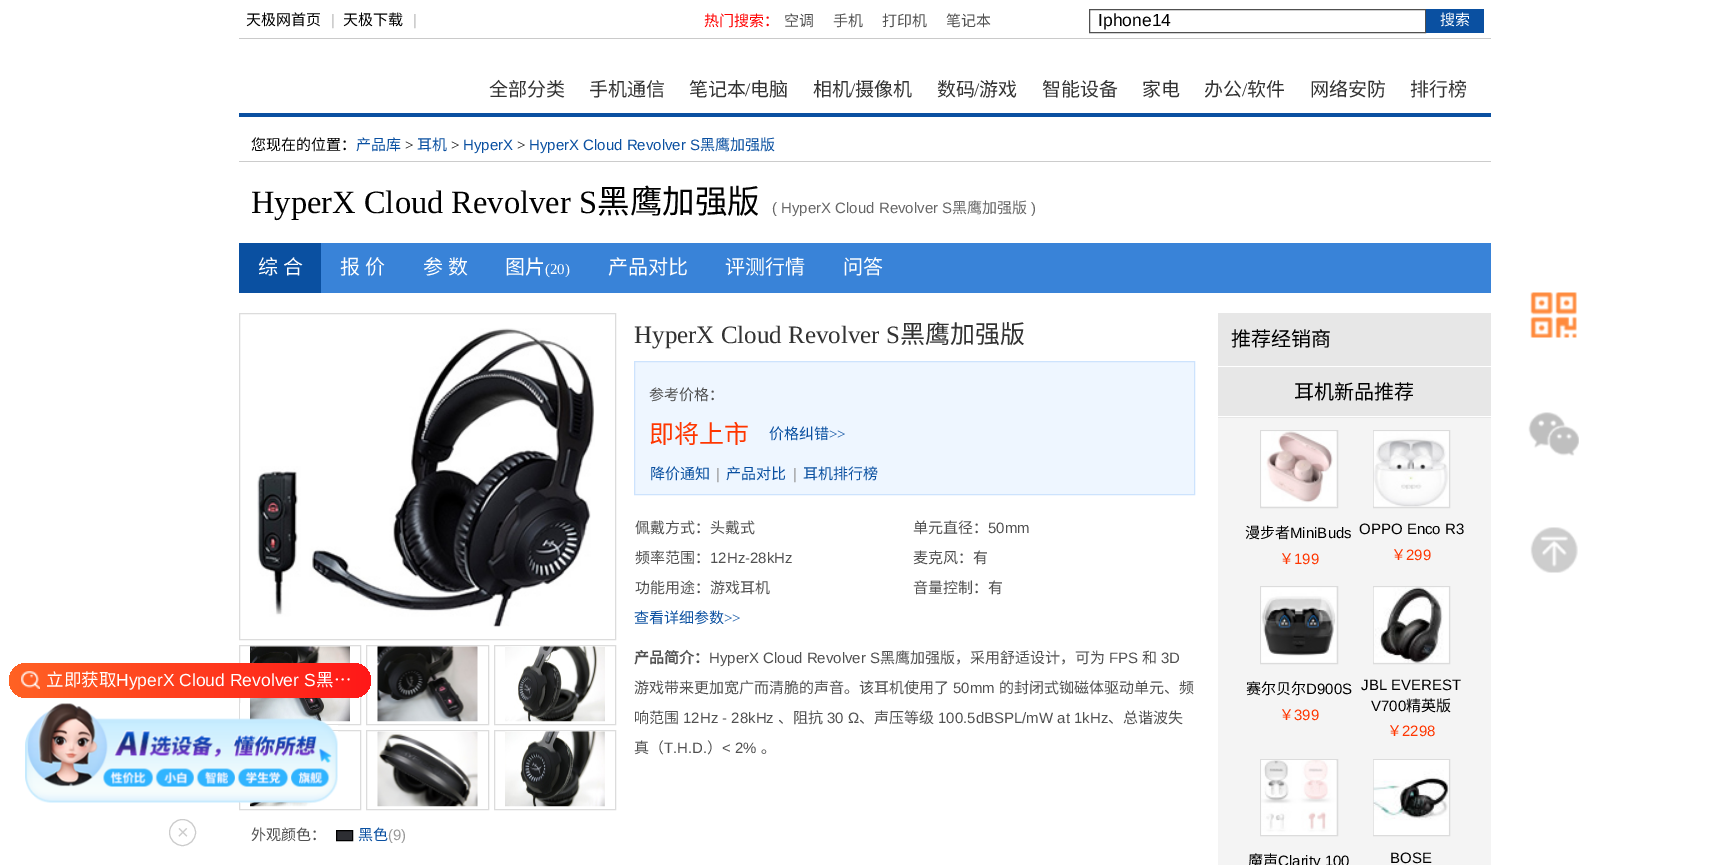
%!PS-Adobe-3.0
%%BoundingBox: 0 0 1730 865
%%LanguageLevel: 3
%%Pages: 1
%%EndComments
%%BeginProlog
/setink { 3 { 255 div 3 1 roll } repeat setrgbcolor } def
/usefont { [ exch dup neg 0 0 3 -1 roll 0 0 ] selectfont } def
/drawtext { setink usefont moveto show } def
/fillbox { setink rectfill } def
/disc { newpath 0 360 arc closepath } def
/rrect { 5 dict begin { /r /h /w /y /x } { exch def } forall
  x r add y moveto x w add y 2 copy h add r arct x w add y h add x 1 index r arct
  x y h add x y r arct x y 2 copy exch w add exch r arct closepath end } def
/drawimage { 5 dict begin { /h /w /y /x /name } { exch def } forall
  gsave x y translate w h scale
  w h 8 [w 0 0 h 0 0] name (r) file false 3 colorimage grestore end } def
%%EndProlog
%%BeginSetup
<< /PageSize [1730 865] >> setpagedevice
%%EndSetup
%%Page: 1 1
0 865 translate 1 -1 scale
4 setmiterlimit
0 0 1730 865 255 255 255 fillbox
239 38 1252 1 202 202 202 fillbox
(天极网首页) 246 25 /NotoSansCJKSC-Regular 15 0 0 0 drawtext
(|) 331 25 /LiberationSans-Regular 15 189 189 189 drawtext
(天极下载) 343 25 /NotoSansCJKSC-Regular 15 0 0 0 drawtext
(|) 413 25 /LiberationSans-Regular 15 189 189 189 drawtext
(热门搜索：) 704 26 /NotoSansCJKSC-Regular 15 255 0 0 drawtext
(空调) 784 26 /NotoSansCJKSC-Regular 15 80 80 80 drawtext
(手机) 833 26 /NotoSansCJKSC-Regular 15 80 80 80 drawtext
(打印机) 882 26 /NotoSansCJKSC-Regular 15 80 80 80 drawtext
(笔记本) 946 26 /NotoSansCJKSC-Regular 15 80 80 80 drawtext
1089.5 9.5 336 23 rectstroke
(Iphone14) 1098 26 /LiberationSans-Regular 17.5 0 0 0 drawtext
1426 9 58 24 10 80 161 fillbox
(搜索) 1440 25 /NotoSansCJKSC-Regular 15 255 255 255 drawtext
239 113 1252 4 10 80 161 fillbox
(全部分类) 489 96 /NotoSansCJKSC-Regular 19 51 51 51 drawtext
(手机通信) 589 96 /NotoSansCJKSC-Regular 19 51 51 51 drawtext
(笔记本) 689 96 /NotoSansCJKSC-Regular 19 51 51 51 drawtext
(/) 745 96 /LiberationSerif-Regular 19 51 51 51 drawtext
(电脑) 750 96 /NotoSansCJKSC-Regular 19 51 51 51 drawtext
(相机) 813 96 /NotoSansCJKSC-Regular 19 51 51 51 drawtext
(/) 850 96 /LiberationSerif-Regular 19 51 51 51 drawtext
(摄像机) 855 96 /NotoSansCJKSC-Regular 19 51 51 51 drawtext
(数码) 937 96 /NotoSansCJKSC-Regular 19 51 51 51 drawtext
(/) 974 96 /LiberationSerif-Regular 19 51 51 51 drawtext
(游戏) 979 96 /NotoSansCJKSC-Regular 19 51 51 51 drawtext
(智能设备) 1042 96 /NotoSansCJKSC-Regular 19 51 51 51 drawtext
(家电) 1142 96 /NotoSansCJKSC-Regular 19 51 51 51 drawtext
(办公) 1204 96 /NotoSansCJKSC-Regular 19 51 51 51 drawtext
(/) 1242 96 /LiberationSerif-Regular 19 51 51 51 drawtext
(软件) 1247 96 /NotoSansCJKSC-Regular 19 51 51 51 drawtext
(网络安防) 1310 96 /NotoSansCJKSC-Regular 19 51 51 51 drawtext
(排行榜) 1410 96 /NotoSansCJKSC-Regular 19 51 51 51 drawtext
239 161 1252 1 204 204 204 fillbox
(您现在的位置：) 251 150 /NotoSansCJKSC-Regular 15 0 0 0 drawtext
(产品库) 356 150 /NotoSansCJKSC-Regular 15 10 80 161 drawtext
(>) 405 150 /LiberationSerif-Regular 15 0 0 0 drawtext
(耳机) 417 150 /NotoSansCJKSC-Regular 15 10 80 161 drawtext
(>) 451 150 /LiberationSerif-Regular 15 0 0 0 drawtext
(HyperX) 463 150 /LiberationSans-Regular 15 10 80 161 drawtext
(>) 517 150 /LiberationSerif-Regular 15 0 0 0 drawtext
(HyperX Cloud Revolver S) 529 150 /LiberationSans-Regular 15 10 80 161 drawtext
(黑鹰加强版) 700 150 /NotoSansCJKSC-Regular 15 10 80 161 drawtext
(HyperX Cloud Revolver S) 251 213 /LiberationSerif-Regular 32.5 0 0 0 drawtext
(黑鹰加强版) 597 213 /NotoSansCJKSC-Regular 32.5 0 0 0 drawtext
(\( HyperX Cloud Revolver S) 772 213 /LiberationSans-Regular 15 102 102 102 drawtext
(黑鹰加强版) 952 213 /NotoSansCJKSC-Regular 15 102 102 102 drawtext
(\)) 1031 213 /LiberationSans-Regular 15 102 102 102 drawtext
321 243 1170 50 57 131 216 fillbox
239 243 82 50 10 80 161 fillbox
/NotoSansCJKSC-Regular 20 usefont
255 255 255 setink
258 274 moveto 1 0 32 (综 合) widthshow
340 274 moveto 1 0 32 (报 价) widthshow
423 274 moveto 1 0 32 (参 数) widthshow
(图片) 505 274 /NotoSansCJKSC-Regular 20 255 255 255 drawtext
(\(20\)) 545 274 /LiberationSerif-Regular 15 255 255 255 drawtext
(产品对比) 608 274 /NotoSansCJKSC-Regular 20 255 255 255 drawtext
(评测行情) 725 274 /NotoSansCJKSC-Regular 20 255 255 255 drawtext
(问答) 843 274 /NotoSansCJKSC-Regular 20 255 255 255 drawtext
220 220 220 setink
239.5 645.5 121 79 rectstroke
(assets/img4.rgb) 250 646 100 76 drawimage
366.5 645.5 122 79 rectstroke
gsave 9 663 362 35 17.5 rrect clip newpath
<< /ShadingType 2 /ColorSpace /DeviceRGB /Coords [9 680 371 680] /Extend [true true] /Function << /FunctionType 2 /Domain [0 1] /C0 [1 0.384 0.141] /C1 [1 0.094 0.094] /N 1 >> >> shfill grestore
(assets/img1.rgb) 21 671 19 18 drawimage
(立即获取) 46 686 /NotoSansCJKSC-Regular 17.5 255 255 255 drawtext
(HyperX Cloud Revolver S) 116 686 /LiberationSans-Regular 17.5 255 255 255 drawtext
(黑…) 316 686 /NotoSansCJKSC-Regular 17.5 255 255 255 drawtext
220 220 220 setink
239.5 730.5 121 79 rectstroke
(assets/img7.rgb) 250 731 87 76 drawimage
(assets/img2.rgb) 25 703 313 100 drawimage
204 204 204 setink
182.5 832.5 13 disc stroke
(×) 177 839 /LiberationSans-Regular 20 204 204 204 drawtext
(HyperX Cloud Revolver S) 634 343 /LiberationSerif-Regular 25 51 51 51 drawtext
(黑鹰加强版) 900 343 /NotoSansCJKSC-Regular 25 51 51 51 drawtext
238 246 255 setink
634.5 361.5 moveto 1194.5 361.5 lineto 1194.5 494.5 lineto 634.5 494.5 lineto closepath gsave fill grestore
205 227 253 setink
stroke
(参考价格：) 649 400 /NotoSansCJKSC-Regular 15 80 80 80 drawtext
(即将上市) 649 443 /NotoSansCJKSC-Regular 25 255 54 0 drawtext
(价格纠错) 769 439 /NotoSansCJKSC-Regular 15 10 80 161 drawtext
(>>) 829 439 /LiberationSerif-Regular 15 10 80 161 drawtext
(降价通知) 650 479 /NotoSansCJKSC-Regular 15 10 80 161 drawtext
(|) 716 479 /LiberationSans-Regular 15 153 153 153 drawtext
(产品对比) 726 479 /NotoSansCJKSC-Regular 15 10 80 161 drawtext
(|) 793 479 /LiberationSans-Regular 15 153 153 153 drawtext
(耳机排行榜) 803 479 /NotoSansCJKSC-Regular 15 10 80 161 drawtext
(佩戴方式：头戴式) 635 533 /NotoSansCJKSC-Regular 15 80 80 80 drawtext
(单元直径：) 913 533 /NotoSansCJKSC-Regular 15 80 80 80 drawtext
(50mm) 988 533 /LiberationSans-Regular 15 80 80 80 drawtext
(频率范围：) 635 563 /NotoSansCJKSC-Regular 15 80 80 80 drawtext
(12Hz-28kHz) 710 563 /LiberationSans-Regular 15 80 80 80 drawtext
(麦克风：有) 913 563 /NotoSansCJKSC-Regular 15 80 80 80 drawtext
(功能用途：游戏耳机) 635 593 /NotoSansCJKSC-Regular 15 80 80 80 drawtext
(音量控制：有) 913 593 /NotoSansCJKSC-Regular 15 80 80 80 drawtext
(查看详细参数) 634 623 /NotoSansCJKSC-Regular 15 10 80 161 drawtext
(>>) 724 623 /LiberationSerif-Regular 15 10 80 161 drawtext
(产品简介：) 634 663 /NotoSansCJKSC-Bold 15 80 80 80 drawtext
(HyperX Cloud Revolver S) 709 663 /LiberationSans-Regular 15 80 80 80 drawtext
(黑鹰加强版，采用舒适设计，可为) 880 663 /NotoSansCJKSC-Regular 15 80 80 80 drawtext
(FPS) 1109 663 /LiberationSans-Regular 15 80 80 80 drawtext
(和) 1142 663 /NotoSansCJKSC-Regular 15 80 80 80 drawtext
(3D) 1161 663 /LiberationSans-Regular 15 80 80 80 drawtext
(游戏带来更加宽广而清脆的声音。该耳机使用了) 634 693 /NotoSansCJKSC-Regular 15 80 80 80 drawtext
(50mm) 953 693 /LiberationSans-Regular 15 80 80 80 drawtext
(的封闭式铷磁体驱动单元、频) 999 693 /NotoSansCJKSC-Regular 15 80 80 80 drawtext
(响范围) 634 723 /NotoSansCJKSC-Regular 15 80 80 80 drawtext
(12Hz - 28kHz) 683 723 /LiberationSans-Regular 15 80 80 80 drawtext
(、阻抗) 778 723 /NotoSansCJKSC-Regular 15 80 80 80 drawtext
(30 Ω) 827 723 /LiberationSans-Regular 15 80 80 80 drawtext
(、声压等级) 859 723 /NotoSansCJKSC-Regular 15 80 80 80 drawtext
(100.5dBSPL/mW at 1kHz) 938 723 /LiberationSans-Regular 15 80 80 80 drawtext
(、总谐波失) 1108 723 /NotoSansCJKSC-Regular 15 80 80 80 drawtext
(真（) 634 753 /NotoSansCJKSC-Regular 15 80 80 80 drawtext
(T.H.D.) 664 753 /LiberationSans-Regular 15 80 80 80 drawtext
(）) 707 753 /NotoSansCJKSC-Regular 15 80 80 80 drawtext
(< 2%) 722 753 /LiberationSans-Regular 15 80 80 80 drawtext
(。) 761 753 /NotoSansCJKSC-Regular 15 80 80 80 drawtext
220 220 220 setink
239.5 313.5 376 326 rectstroke
(assets/img3.rgb) 257 328 338 299 drawimage
(assets/img5.rgb) 377 646 101 76 drawimage
494.5 645.5 121 79 rectstroke
(assets/img6.rgb) 505 646 100 76 drawimage
366.5 730.5 122 79 rectstroke
(assets/img8.rgb) 377 731 101 76 drawimage
494.5 730.5 121 79 rectstroke
(assets/img9.rgb) 505 731 100 76 drawimage
(外观颜色：) 251 840 /NotoSansCJKSC-Regular 15 80 80 80 drawtext
45 46 51 setink
336.5 830.5 moveto 352.5 830.5 lineto 352.5 840.5 lineto 336.5 840.5 lineto closepath gsave fill grestore
0 0 0 setink
stroke
(黑色) 358 840 /NotoSansCJKSC-Regular 15 10 80 161 drawtext
(\(9\)) 388 840 /LiberationSans-Regular 15 153 153 153 drawtext
1218 418 273 447 244 244 244 fillbox
1218 313 273 105 231 231 231 fillbox
1218 366 273 1 255 255 255 fillbox
(推荐经销商) 1231 346 /NotoSansCJKSC-Regular 20 0 0 0 drawtext
1218 416 273 1 255 255 255 fillbox
(耳机新品推荐) 1294 399 /NotoSansCJKSC-Regular 20 0 0 0 drawtext
220 220 220 setink
1260.5 430.5 77 77 rectstroke
(assets/img10.rgb) 1261 431 75 75 drawimage
(漫步者) 1245 538 /NotoSansCJKSC-Regular 15 0 0 0 drawtext
(MiniBuds) 1290 538 /LiberationSans-Regular 15 0 0 0 drawtext
(￥) 1279 564 /NotoSansCJKSC-Regular 15 255 54 0 drawtext
(199) 1294 564 /LiberationSans-Regular 15 255 54 0 drawtext
220 220 220 setink
1373.5 430.5 76 77 rectstroke
(assets/img11.rgb) 1373 431 76 76 drawimage
(OPPO Enco R3) 1359 534 /LiberationSans-Regular 15 0 0 0 drawtext
(￥) 1391 560 /NotoSansCJKSC-Regular 15 255 54 0 drawtext
(299) 1406 560 /LiberationSans-Regular 15 255 54 0 drawtext
220 220 220 setink
1260.5 586.5 77 77 rectstroke
(assets/img12.rgb) 1261 587 75 76 drawimage
(赛尔贝尔) 1246 694 /NotoSansCJKSC-Regular 15 0 0 0 drawtext
(D900S) 1306 694 /LiberationSans-Regular 15 0 0 0 drawtext
(￥) 1279 720 /NotoSansCJKSC-Regular 15 255 54 0 drawtext
(399) 1294 720 /LiberationSans-Regular 15 255 54 0 drawtext
220 220 220 setink
1373.5 586.5 76 77 rectstroke
(assets/img13.rgb) 1373 587 76 76 drawimage
(JBL EVEREST) 1361 690 /LiberationSans-Regular 15 0 0 0 drawtext
(V700) 1371 711 /LiberationSans-Regular 15 0 0 0 drawtext
(精英版) 1406 711 /NotoSansCJKSC-Regular 15 0 0 0 drawtext
(￥) 1387 736 /NotoSansCJKSC-Regular 15 255 54 0 drawtext
(2298) 1402 736 /LiberationSans-Regular 15 255 54 0 drawtext
220 220 220 setink
1260.5 759.5 77 76 rectstroke
(assets/img14.rgb) 1261 760 75 75 drawimage
(魔声) 1248 866 /NotoSansCJKSC-Regular 15 0 0 0 drawtext
(Clarity 100) 1278 866 /LiberationSans-Regular 15 0 0 0 drawtext
220 220 220 setink
1373.5 759.5 76 76 rectstroke
(assets/img15.rgb) 1373 760 76 75 drawimage
(BOSE) 1390 863 /LiberationSans-Regular 15 0 0 0 drawtext
(assets/img16.rgb) 1530 292 47 46 drawimage
(assets/img17.rgb) 1528 412 51 44 drawimage
(assets/img18.rgb) 1530 527 48 46 drawimage
showpage
%%EOF
